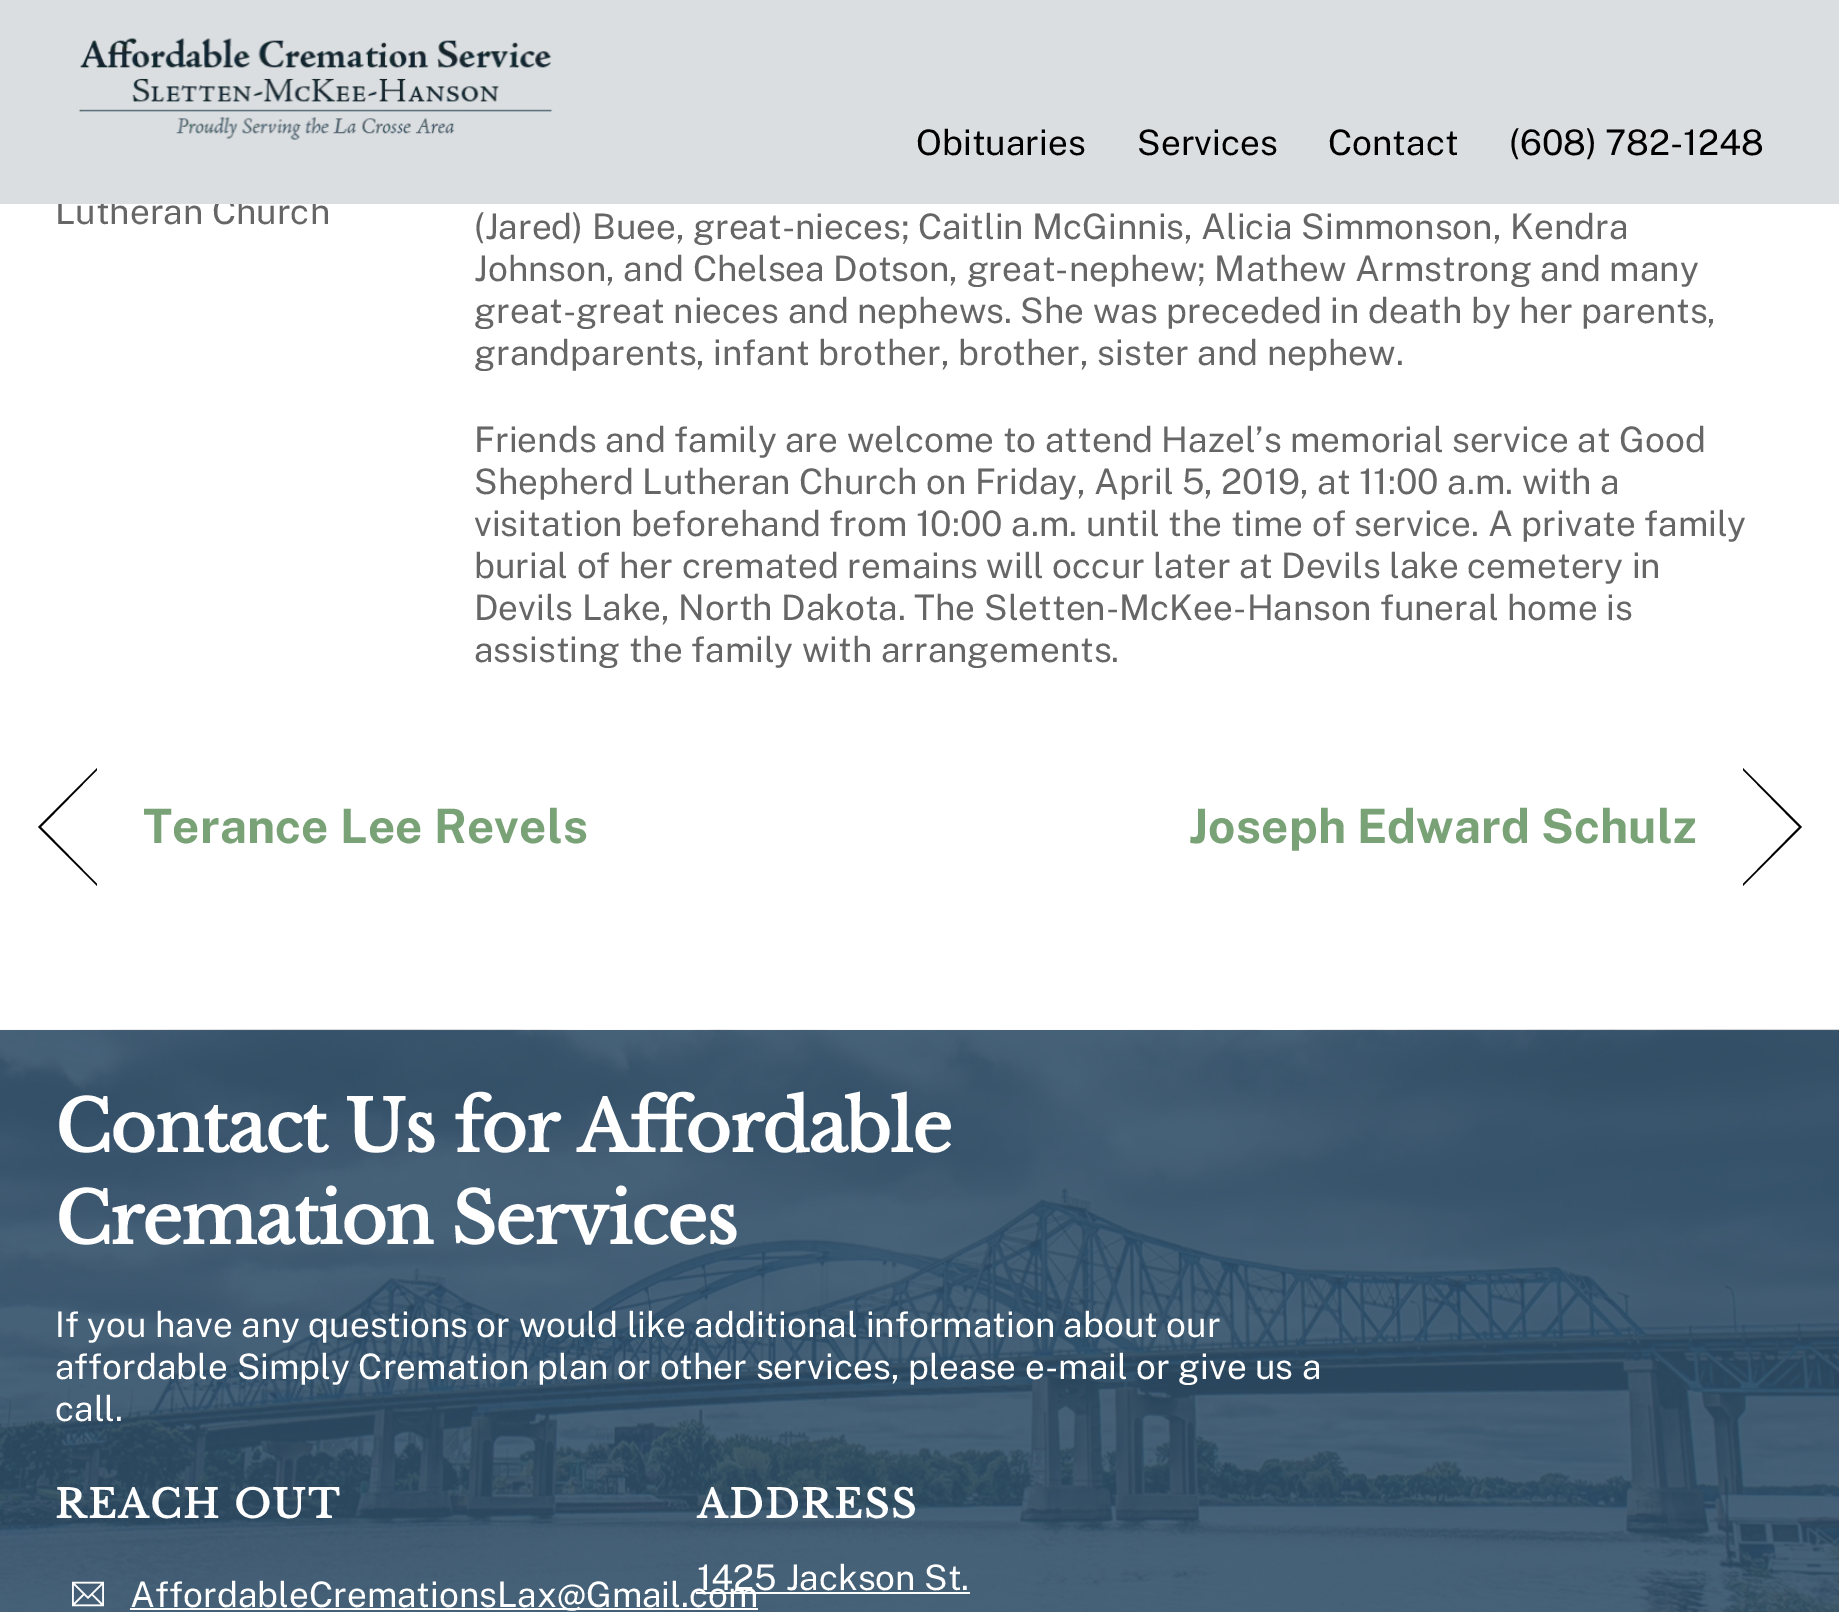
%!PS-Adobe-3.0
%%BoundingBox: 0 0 1839 1612
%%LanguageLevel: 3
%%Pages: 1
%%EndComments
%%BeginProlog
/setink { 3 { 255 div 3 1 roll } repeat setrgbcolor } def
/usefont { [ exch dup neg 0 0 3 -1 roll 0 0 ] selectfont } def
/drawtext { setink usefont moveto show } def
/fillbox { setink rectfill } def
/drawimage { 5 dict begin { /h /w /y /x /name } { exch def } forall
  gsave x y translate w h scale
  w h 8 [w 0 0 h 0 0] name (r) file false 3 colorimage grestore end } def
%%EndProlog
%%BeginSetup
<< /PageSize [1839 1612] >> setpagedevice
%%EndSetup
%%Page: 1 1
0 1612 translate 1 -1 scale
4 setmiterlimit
0 0 1839 1612 255 255 255 fillbox
0 1030 1839 1 70 98 122 fillbox
(Lutheran Church) 55 224 /PublicSans-Regular 35.2 102 102 102 drawtext
0 0 1839 204 218 222 225 fillbox
(assets/img1.rgb) 79 38 474 102 drawimage
(Obituaries) 916 155 /PublicSans-Regular 35.2 0 0 0 drawtext
(Services) 1137 155 /PublicSans-Regular 35.2 0 0 0 drawtext
(Contact) 1328 155 /PublicSans-Regular 35.2 0 0 0 drawtext
(\(608\) 782-1248) 1509 155 /PublicSans-Regular 35.2 0 0 0 drawtext
(\(Jared\) Buee, great-nieces; Caitlin McGinnis, Alicia Simmonson, Kendra) 474 239 /PublicSans-Regular 35.2 102 102 102 drawtext
(Johnson, and Chelsea Dotson, great-nephew; Mathew Armstrong and many) 474 281 /PublicSans-Regular 35.2 102 102 102 drawtext
(great-great nieces and nephews. She was preceded in death by her parents,) 474 323 /PublicSans-Regular 35.2 102 102 102 drawtext
(grandparents, infant brother, brother, sister and nephew.) 474 365 /PublicSans-Regular 35.2 102 102 102 drawtext
(Friends and family are welcome to attend Hazel’s memorial service at Good) 474 452 /PublicSans-Regular 35.2 102 102 102 drawtext
(Shepherd Lutheran Church on Friday, April 5, 2019, at 11:00 a.m. with a) 474 494 /PublicSans-Regular 35.2 102 102 102 drawtext
(visitation beforehand from 10:00 a.m. until the time of service. A private family) 474 536 /PublicSans-Regular 35.2 102 102 102 drawtext
(burial of her cremated remains will occur later at Devils lake cemetery in) 474 578 /PublicSans-Regular 35.2 102 102 102 drawtext
(Devils Lake, North Dakota. The Sletten-McKee-Hanson funeral home is) 474 620 /PublicSans-Regular 35.2 102 102 102 drawtext
(assisting the family with arrangements.) 474 662 /PublicSans-Regular 35.2 102 102 102 drawtext
0 0 0 setink
97 886 moveto 38 827 lineto 41 827 lineto 97 884 lineto closepath fill
38 827 moveto 97 768 lineto 97 770 lineto 41 827 lineto closepath fill
/PublicSans-Bold 47.5 usefont
121 162 119 setink
143 843 moveto 0.2 0 (Terance Lee Revels) ashow
1189 843 moveto 0.2 0 (Joseph Edward Schulz) ashow
0 0 0 setink
1743 768 moveto 1802 827 lineto 1799 827 lineto 1743 770 lineto closepath fill
1802 827 moveto 1743 886 lineto 1743 884 lineto 1799 827 lineto closepath fill
(assets/img2.rgb) 0 1029 1839 583 drawimage
/LibreBaskerville-Bold 70.4 usefont
255 255 255 setink
55 1152 moveto -1.4 0 (Contact Us for Affordable) ashow
55 1244 moveto -1.4 0 (Cremation Services) ashow
(If you have any questions or would like additional information about our) 55 1337 /PublicSans-Regular 35.2 255 255 255 drawtext
(affordable Simply Cremation plan or other services, please e-mail or give us a) 55 1379 /PublicSans-Regular 35.2 255 255 255 drawtext
(call.) 55 1421 /PublicSans-Regular 35.2 255 255 255 drawtext
/LibreBaskerville-Bold 38.75 usefont
55 1518 moveto 2 0 (REACH OUT) ashow
(assets/img3.rgb) 72 1581 32 26 drawimage
130 1608 628 2 255 255 255 fillbox
(AffordableCremationsLax@Gmail.com) 130 1607 /PublicSans-Regular 35.2 255 255 255 drawtext
/LibreBaskerville-Bold 38.75 usefont
697 1518 moveto 2 0 (ADDRESS) ashow
(1425 Jackson St.) 697 1590 /PublicSans-Regular 35.2 255 255 255 drawtext
696 1592 274 2 255 255 255 fillbox
showpage
%%EOF
